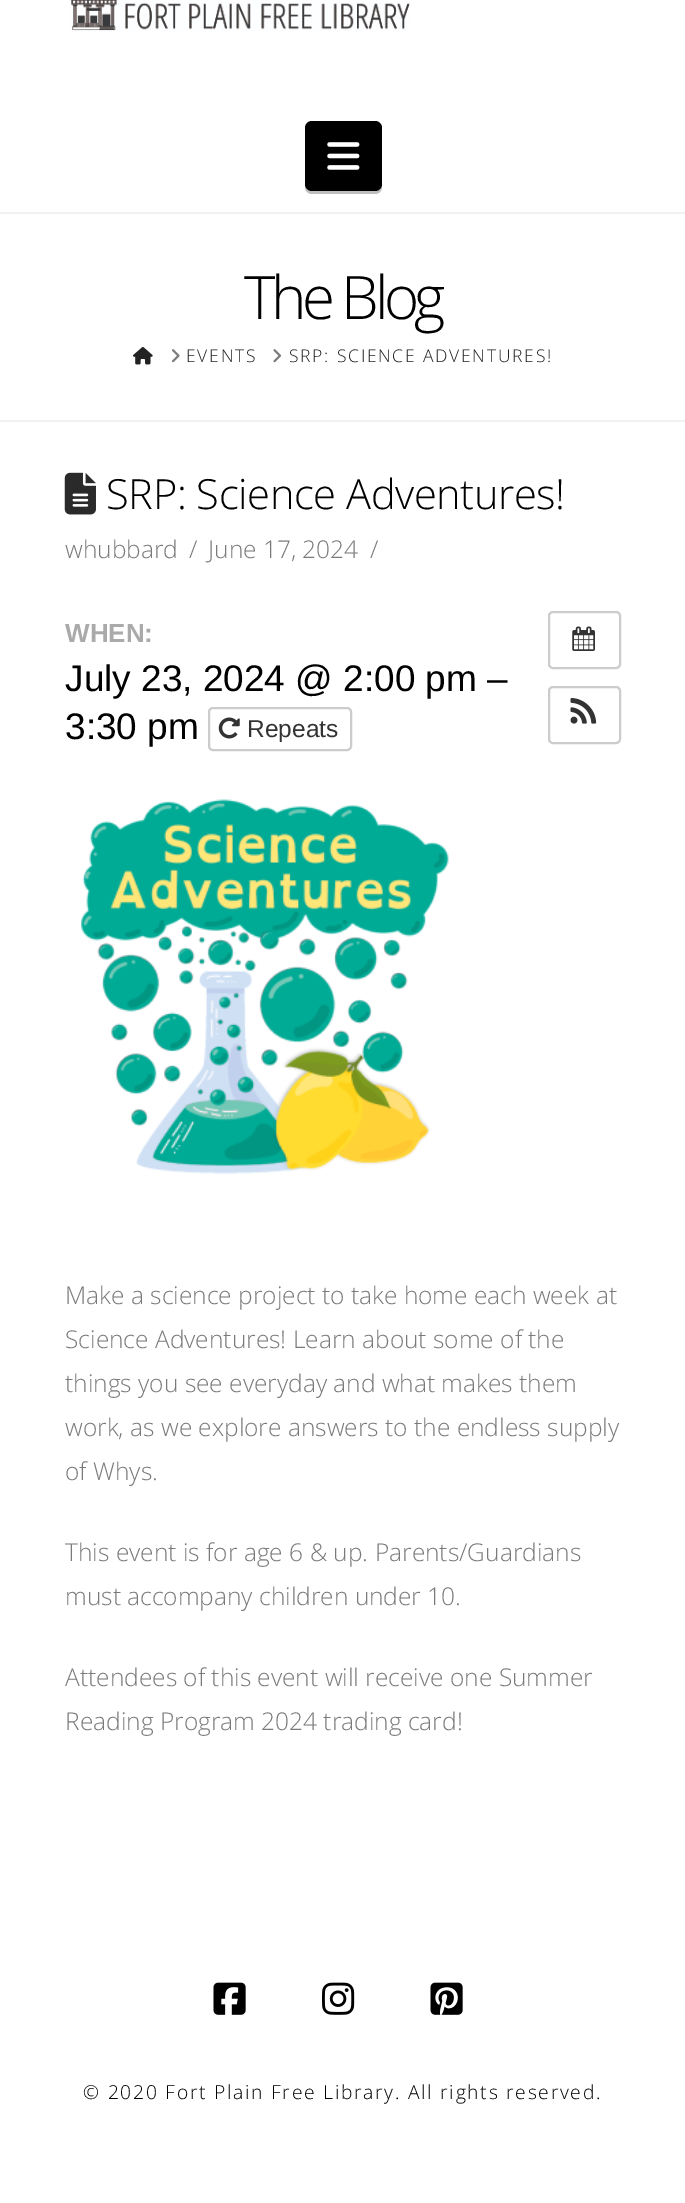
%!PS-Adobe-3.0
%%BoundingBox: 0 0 685 2203
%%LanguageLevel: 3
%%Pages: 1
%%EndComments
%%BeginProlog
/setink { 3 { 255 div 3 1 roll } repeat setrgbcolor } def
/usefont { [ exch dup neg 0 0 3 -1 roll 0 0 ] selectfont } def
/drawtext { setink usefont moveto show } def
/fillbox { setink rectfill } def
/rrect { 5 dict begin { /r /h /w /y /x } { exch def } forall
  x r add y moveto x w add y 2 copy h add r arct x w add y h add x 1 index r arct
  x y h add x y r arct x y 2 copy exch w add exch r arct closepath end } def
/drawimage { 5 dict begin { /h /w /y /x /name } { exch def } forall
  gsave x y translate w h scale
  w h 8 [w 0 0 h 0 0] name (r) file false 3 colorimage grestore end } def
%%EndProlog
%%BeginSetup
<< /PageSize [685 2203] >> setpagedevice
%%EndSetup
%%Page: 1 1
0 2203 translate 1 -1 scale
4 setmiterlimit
0 0 685 2203 255 255 255 fillbox
(assets/img1.rgb) 69 0 341 31 drawimage
191 191 191 setink
305 186 moveto 305 187 lineto 305 191 308 194 312 194 curveto 375 194 lineto 379 194 382 191 382 187 curveto 382 131 lineto 382 128 lineto 382 184 lineto 382 188 378 191 374 191 curveto 312 191 lineto 309 191 306 189 305 186 curveto closepath fill
0 0 0 setink
305 121 77 70 7 rrect fill
(assets/img2.rgb) 327 142 33 28 drawimage
0 212 685 2 242 242 242 fillbox
0 420 685 2 242 242 242 fillbox
/OpenSans-Light 60 usefont
0 0 0 setink
244 319 moveto -4.5 0 (The Blog) ashow
(assets/img3.rgb) 133 347 20 18 drawimage
(assets/img4.rgb) 172 349 8 14 drawimage
/OpenSans-Light 17.5 usefont
34 34 34 setink
186 362 moveto 1.75 0 (EVENTS) ashow
(assets/img5.rgb) 273 349 9 14 drawimage
289 362 moveto 1.75 0 (SRP: SCIENCE ADVENTURES!) ashow
(assets/img6.rgb) 64 472 32 43 drawimage
/OpenSans-Light 41.6 usefont
0 0 0 setink
106 509 moveto -0.4 0 (SRP: Science Adventures!) ashow
(whubbard) 65 558 /OpenSans-Light 24.5 122 122 122 drawtext
(/) 189 558 /OpenSans-Light 24.5 122 122 122 drawtext
(June 17, 2024) 208 558 /OpenSans-Light 24.5 122 122 122 drawtext
(/) 370 558 /OpenSans-Light 24.5 122 122 122 drawtext
(WHEN:) 65 642 /LiberationSans-Bold 26 170 170 170 drawtext
(July 23, 2024 @ 2:00 pm –) 65 691 /LiberationSans-Regular 37 0 0 0 drawtext
(3:30 pm) 65 739 /LiberationSans-Regular 37 0 0 0 drawtext
204 204 204 setink
2 setlinewidth
209 708 142 42 4 rrect stroke
(assets/img7.rgb) 218 717 22 22 drawimage
(Repeats) 247 737 /LiberationSans-Regular 24.5 51 51 51 drawtext
204 204 204 setink
549 612 71 56 4 rrect stroke
(assets/img8.rgb) 572 626 23 25 drawimage
549 687 71 56 4 rrect stroke
(assets/img9.rgb) 570 698 27 26 drawimage
(assets/img10.rgb) 81 799 368 375 drawimage
(Make a science project to take home each week at) 65 1304 /OpenSans-Light 24.5 122 122 122 drawtext
(Science Adventures! Learn about some of the) 65 1348 /OpenSans-Light 24.5 122 122 122 drawtext
(things you see everyday and what makes them) 65 1392 /OpenSans-Light 24.5 122 122 122 drawtext
(work, as we explore answers to the endless supply) 65 1436 /OpenSans-Light 24.5 122 122 122 drawtext
(of Whys.) 65 1480 /OpenSans-Light 24.5 122 122 122 drawtext
(This event is for age 6 & up. Parents/Guardians) 65 1561 /OpenSans-Light 24.5 122 122 122 drawtext
(must accompany children under 10.) 65 1605 /OpenSans-Light 24.5 122 122 122 drawtext
(Attendees of this event will receive one Summer) 65 1686 /OpenSans-Light 24.5 122 122 122 drawtext
(Reading Program 2024 trading card!) 65 1730 /OpenSans-Light 24.5 122 122 122 drawtext
(assets/img11.rgb) 213 1982 33 33 drawimage
(assets/img12.rgb) 322 1982 33 33 drawimage
(assets/img13.rgb) 430 1982 33 33 drawimage
/OpenSans-Light 19.25 usefont
0 0 0 setink
83 2099 moveto 1.75 0 (© 2020 Fort Plain Free Library. All rights reserved.) ashow
showpage
%%EOF
